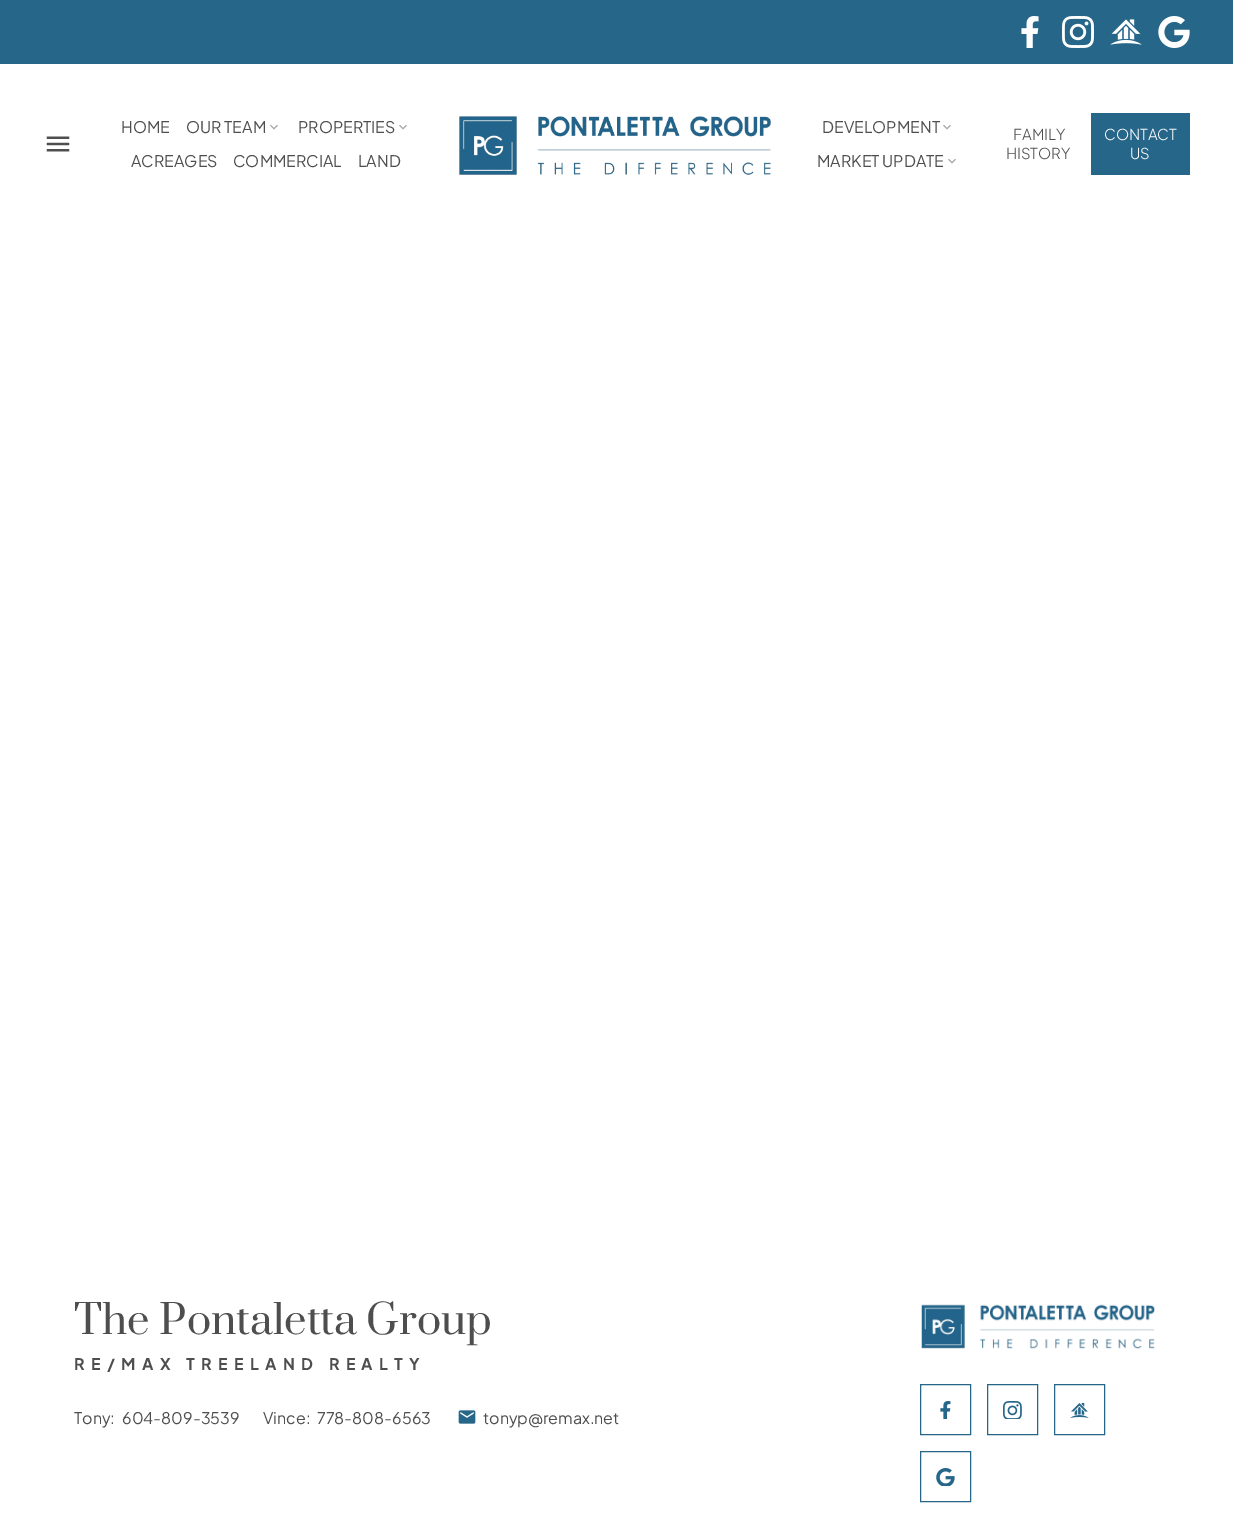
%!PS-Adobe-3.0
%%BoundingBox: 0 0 1233 1530
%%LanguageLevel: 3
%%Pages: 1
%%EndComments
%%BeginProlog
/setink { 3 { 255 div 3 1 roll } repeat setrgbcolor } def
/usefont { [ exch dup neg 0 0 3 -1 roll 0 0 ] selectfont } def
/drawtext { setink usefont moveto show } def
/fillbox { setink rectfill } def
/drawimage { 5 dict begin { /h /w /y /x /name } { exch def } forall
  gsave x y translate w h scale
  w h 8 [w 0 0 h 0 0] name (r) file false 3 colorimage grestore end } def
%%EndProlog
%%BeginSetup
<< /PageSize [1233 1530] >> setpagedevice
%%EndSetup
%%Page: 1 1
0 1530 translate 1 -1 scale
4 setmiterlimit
0 0 1233 1530 255 255 255 fillbox
0 0 1233 64 37 102 137 fillbox
(assets/img1.rgb) 1021 16 18 32 drawimage
(assets/img2.rgb) 1062 16 32 32 drawimage
(assets/img3.rgb) 1110 19 32 26 drawimage
(assets/img4.rgb) 1158 16 32 32 drawimage
(assets/img5.rgb) 46 136 24 16 drawimage
(HOME) 121 133 /PlusJakartaSans-Regular 16 78 78 78 drawtext
(OUR TEAM) 186 133 /PlusJakartaSans-Regular 16 78 78 78 drawtext
(assets/img6.rgb) 270 124 8 6 drawimage
(PROPERTIES) 298 133 /PlusJakartaSans-Regular 16 78 78 78 drawtext
(assets/img6.rgb) 399 124 8 6 drawimage
(ACREAGES) 131 167 /PlusJakartaSans-Regular 16 78 78 78 drawtext
(COMMERCIAL) 233 167 /PlusJakartaSans-Regular 16 78 78 78 drawtext
(LAND) 358 167 /PlusJakartaSans-Regular 16 78 78 78 drawtext
(assets/img7.rgb) 459 116 312 59 drawimage
(DEVELOPMENT) 822 133 /PlusJakartaSans-Regular 16 78 78 78 drawtext
(assets/img6.rgb) 943 124 8 6 drawimage
(MARKET UPDATE) 817 167 /PlusJakartaSans-Regular 16 78 78 78 drawtext
(assets/img6.rgb) 948 158 8 6 drawimage
(FAMILY) 1013 140 /PlusJakartaSans-Light 15 78 78 78 drawtext
(HISTORY) 1006 159 /PlusJakartaSans-Light 15 78 78 78 drawtext
1091 113 99 62 37 102 137 fillbox
(CONTACT) 1104 140 /PlusJakartaSans-Light 15 255 255 255 drawtext
(US) 1130 159 /PlusJakartaSans-Light 15 255 255 255 drawtext
(The Pontaletta Group) 74 1334 /Prata-Regular 40 78 78 78 drawtext
/PlusJakartaSans-Bold 16 usefont
74 1370 moveto 6.4 0 (RE/MAX TREELAND REALTY) ashow
(Tony:) 74 1424 /PlusJakartaSans-Regular 16 78 78 78 drawtext
(604-809-3539) 122 1424 /PlusJakartaSans-Regular 16 78 78 78 drawtext
(Vince:) 263 1424 /PlusJakartaSans-Regular 16 78 78 78 drawtext
(778-808-6563) 317 1424 /PlusJakartaSans-Regular 16 78 78 78 drawtext
(assets/img8.rgb) 458 1410 18 14 drawimage
(tonyp@remax.net) 483 1424 /PlusJakartaSans-Regular 16 78 78 78 drawtext
(assets/img9.rgb) 921 1304 234 45 drawimage
37 102 137 setink
920.5 1384.5 50 50 rectstroke
(assets/img10.rgb) 940 1401 11 18 drawimage
987.5 1384.5 50 50 rectstroke
(assets/img11.rgb) 1003 1401 19 18 drawimage
1054.5 1384.5 50 50 rectstroke
(assets/img12.rgb) 1070 1403 19 15 drawimage
920.5 1451.5 50 50 rectstroke
(assets/img13.rgb) 936 1468 19 18 drawimage
showpage
%%EOF
